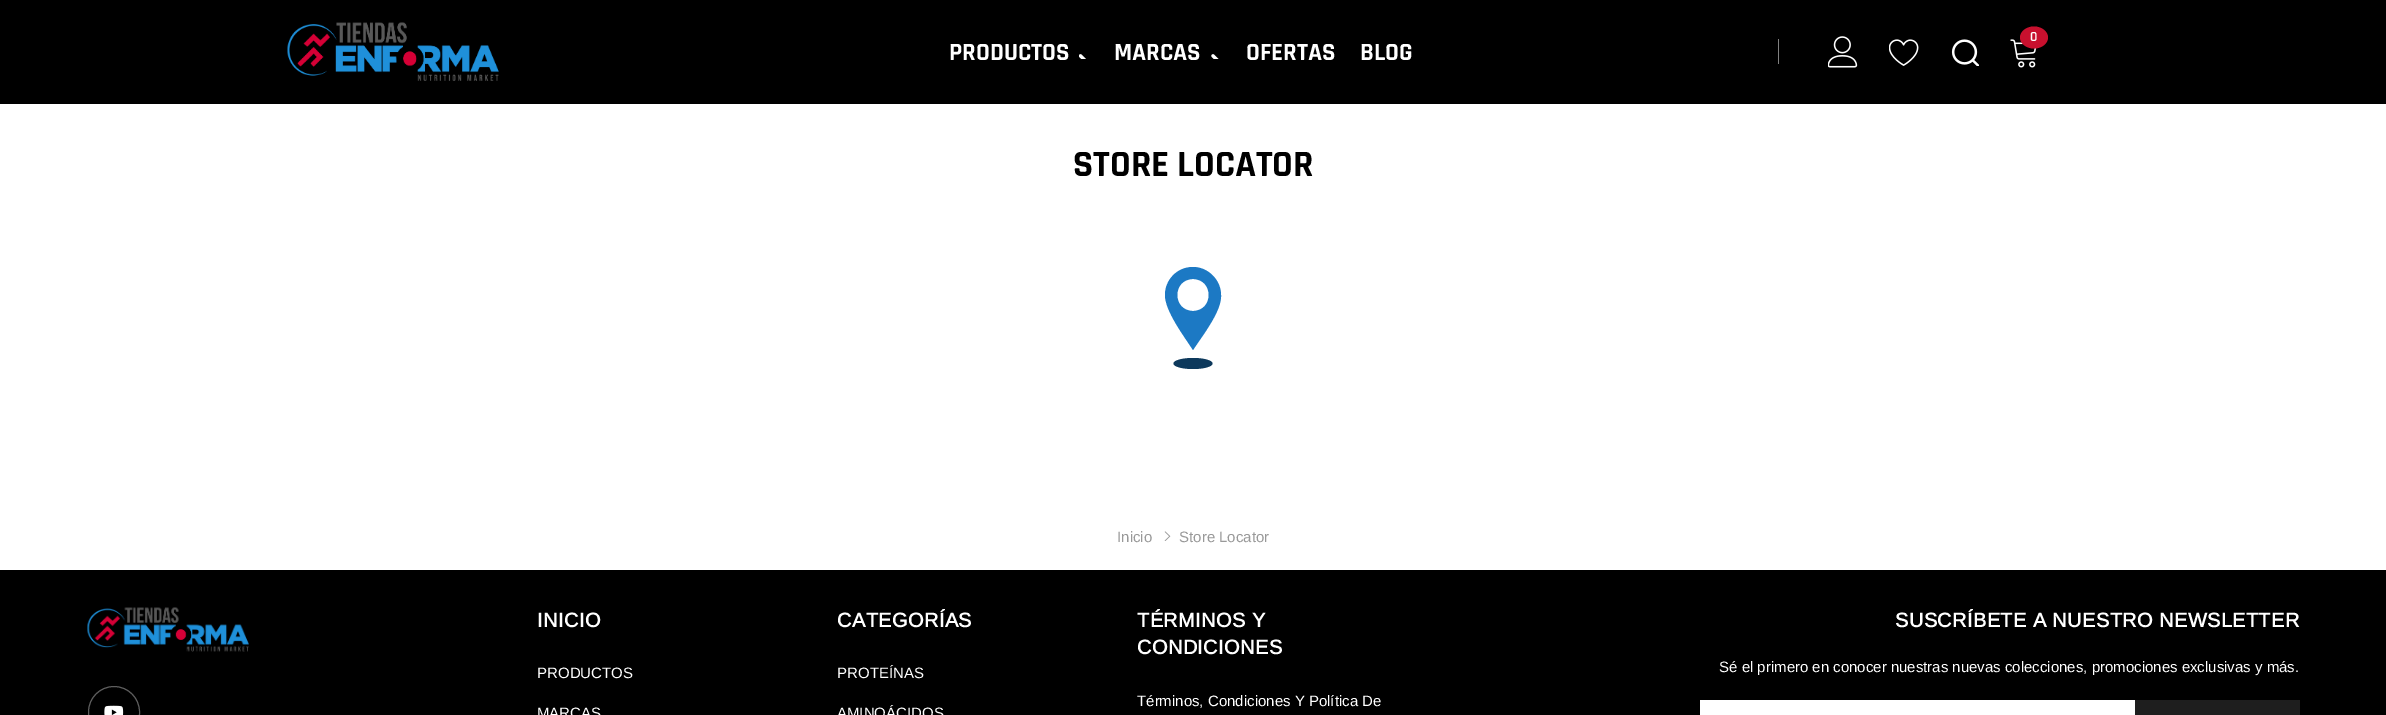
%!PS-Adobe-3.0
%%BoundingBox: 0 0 2386 715
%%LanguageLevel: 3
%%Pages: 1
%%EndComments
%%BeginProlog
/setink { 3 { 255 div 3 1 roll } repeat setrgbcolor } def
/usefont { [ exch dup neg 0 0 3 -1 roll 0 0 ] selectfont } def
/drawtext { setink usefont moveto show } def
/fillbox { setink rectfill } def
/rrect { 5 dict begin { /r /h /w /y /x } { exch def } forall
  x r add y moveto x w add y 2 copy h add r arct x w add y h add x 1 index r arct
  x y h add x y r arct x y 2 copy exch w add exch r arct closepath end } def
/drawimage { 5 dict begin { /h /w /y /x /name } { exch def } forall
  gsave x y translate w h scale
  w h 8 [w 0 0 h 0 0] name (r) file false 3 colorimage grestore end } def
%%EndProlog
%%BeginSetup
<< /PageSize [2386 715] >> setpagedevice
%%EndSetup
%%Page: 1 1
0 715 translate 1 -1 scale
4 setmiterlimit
0 0 2386 715 255 255 255 fillbox
0 0 2386 104 0 0 0 fillbox
(assets/img1.rgb) 287 22 212 59 drawimage
1778 39 1 25 128 128 128 fillbox
(assets/img2.rgb) 1828 36 30 32 drawimage
(assets/img3.rgb) 1889 39 30 27 drawimage
(assets/img4.rgb) 1951 39 28 27 drawimage
(assets/img5.rgb) 2010 39 27 29 drawimage
200 16 46 setink
2034 26.5 moveto 2041.5 26.5 2048 31.5 2048 37.5 curveto 2048 43.5 2041.5 48.5 2034 48.5 curveto 2026.5 48.5 2020 43.5 2020 37.5 curveto 2020 31.5 2026.5 26.5 2034 26.5 curveto closepath fill
(0) 2030 41 /Rajdhani-SemiBold 14 255 255 255 drawtext
(PRODUCTOS) 949 60 /Rajdhani-Bold 25 255 255 255 drawtext
(assets/img6.rgb) 1079 54 7 5 drawimage
(MARCAS) 1114 60 /Rajdhani-Bold 25 255 255 255 drawtext
(assets/img7.rgb) 1211 54 8 5 drawimage
(OFERTAS) 1246 60 /Rajdhani-Bold 25 255 255 255 drawtext
(BLOG) 1360 60 /Rajdhani-Bold 25 255 255 255 drawtext
(STORE LOCATOR) 1073 176 /Rajdhani-Bold 37.5 0 0 0 drawtext
28 121 196 setink
1193 350 moveto 1184 336 1165 311 1165 295 curveto 1165 280 1177 267 1193 267 curveto 1208 267 1221 280 1221 295 curveto 1222 311 1202 336 1193 350 curveto closepath 1193 279 moveto 1172 279 1172 311 1193 311 curveto 1214 311 1214 279 1193 279 curveto closepath fill
13 57 92 setink
1193 358 moveto 1204 358 1212.5 360.5 1212.5 363.5 curveto 1212.5 366.5 1204 369 1193 369 curveto 1182 369 1173.5 366.5 1173.5 363.5 curveto 1173.5 360.5 1182 358 1193 358 curveto closepath fill
(Inicio) 1117 542 /Arimo-Regular 15 153 153 153 drawtext
(assets/img8.rgb) 1164 531 7 10 drawimage
(Store Locator) 1179 542 /Arimo-Regular 15 153 153 153 drawtext
0 570 2386 145 0 0 0 fillbox
(assets/img9.rgb) 87 607 162 45 drawimage
94 94 94 setink
88.5 686.5 51 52 25.5 rrect stroke
(assets/img10.rgb) 104 705 20 10 drawimage
/Arimo-Bold 20 usefont
255 255 255 setink
537 627 moveto 0.4 0 (INICIO) ashow
(PRODUCTOS) 537 678 /Arimo-Regular 15 255 255 255 drawtext
(MARCAS) 537 718 /Arimo-Regular 15 255 255 255 drawtext
/Arimo-Bold 20 usefont
837 627 moveto 0.4 0 (CATEGORÍAS) ashow
(PROTEÍNAS) 837 678 /Arimo-Regular 15 255 255 255 drawtext
(AMINOÁCIDOS) 837 718 /Arimo-Regular 15 255 255 255 drawtext
/Arimo-Bold 20 usefont
1137 627 moveto 0.4 0 (TÉRMINOS Y) ashow
1137 654 moveto 0.4 0 (CONDICIONES) ashow
(Términos, Condiciones Y Política De) 1137 706 /Arimo-Regular 15 255 255 255 drawtext
/Arimo-Bold 20 usefont
1895 627 moveto 0.4 0 (SUSCRÍBETE A NUESTRO NEWSLETTER) ashow
(Sé el primero en conocer nuestras nuevas colecciones, promociones exclusivas y más.) 1719 672 /Arimo-Regular 15 255 255 255 drawtext
1700 700 435 15 255 255 255 fillbox
2135 700 165 15 30 30 30 fillbox
showpage
%%EOF
